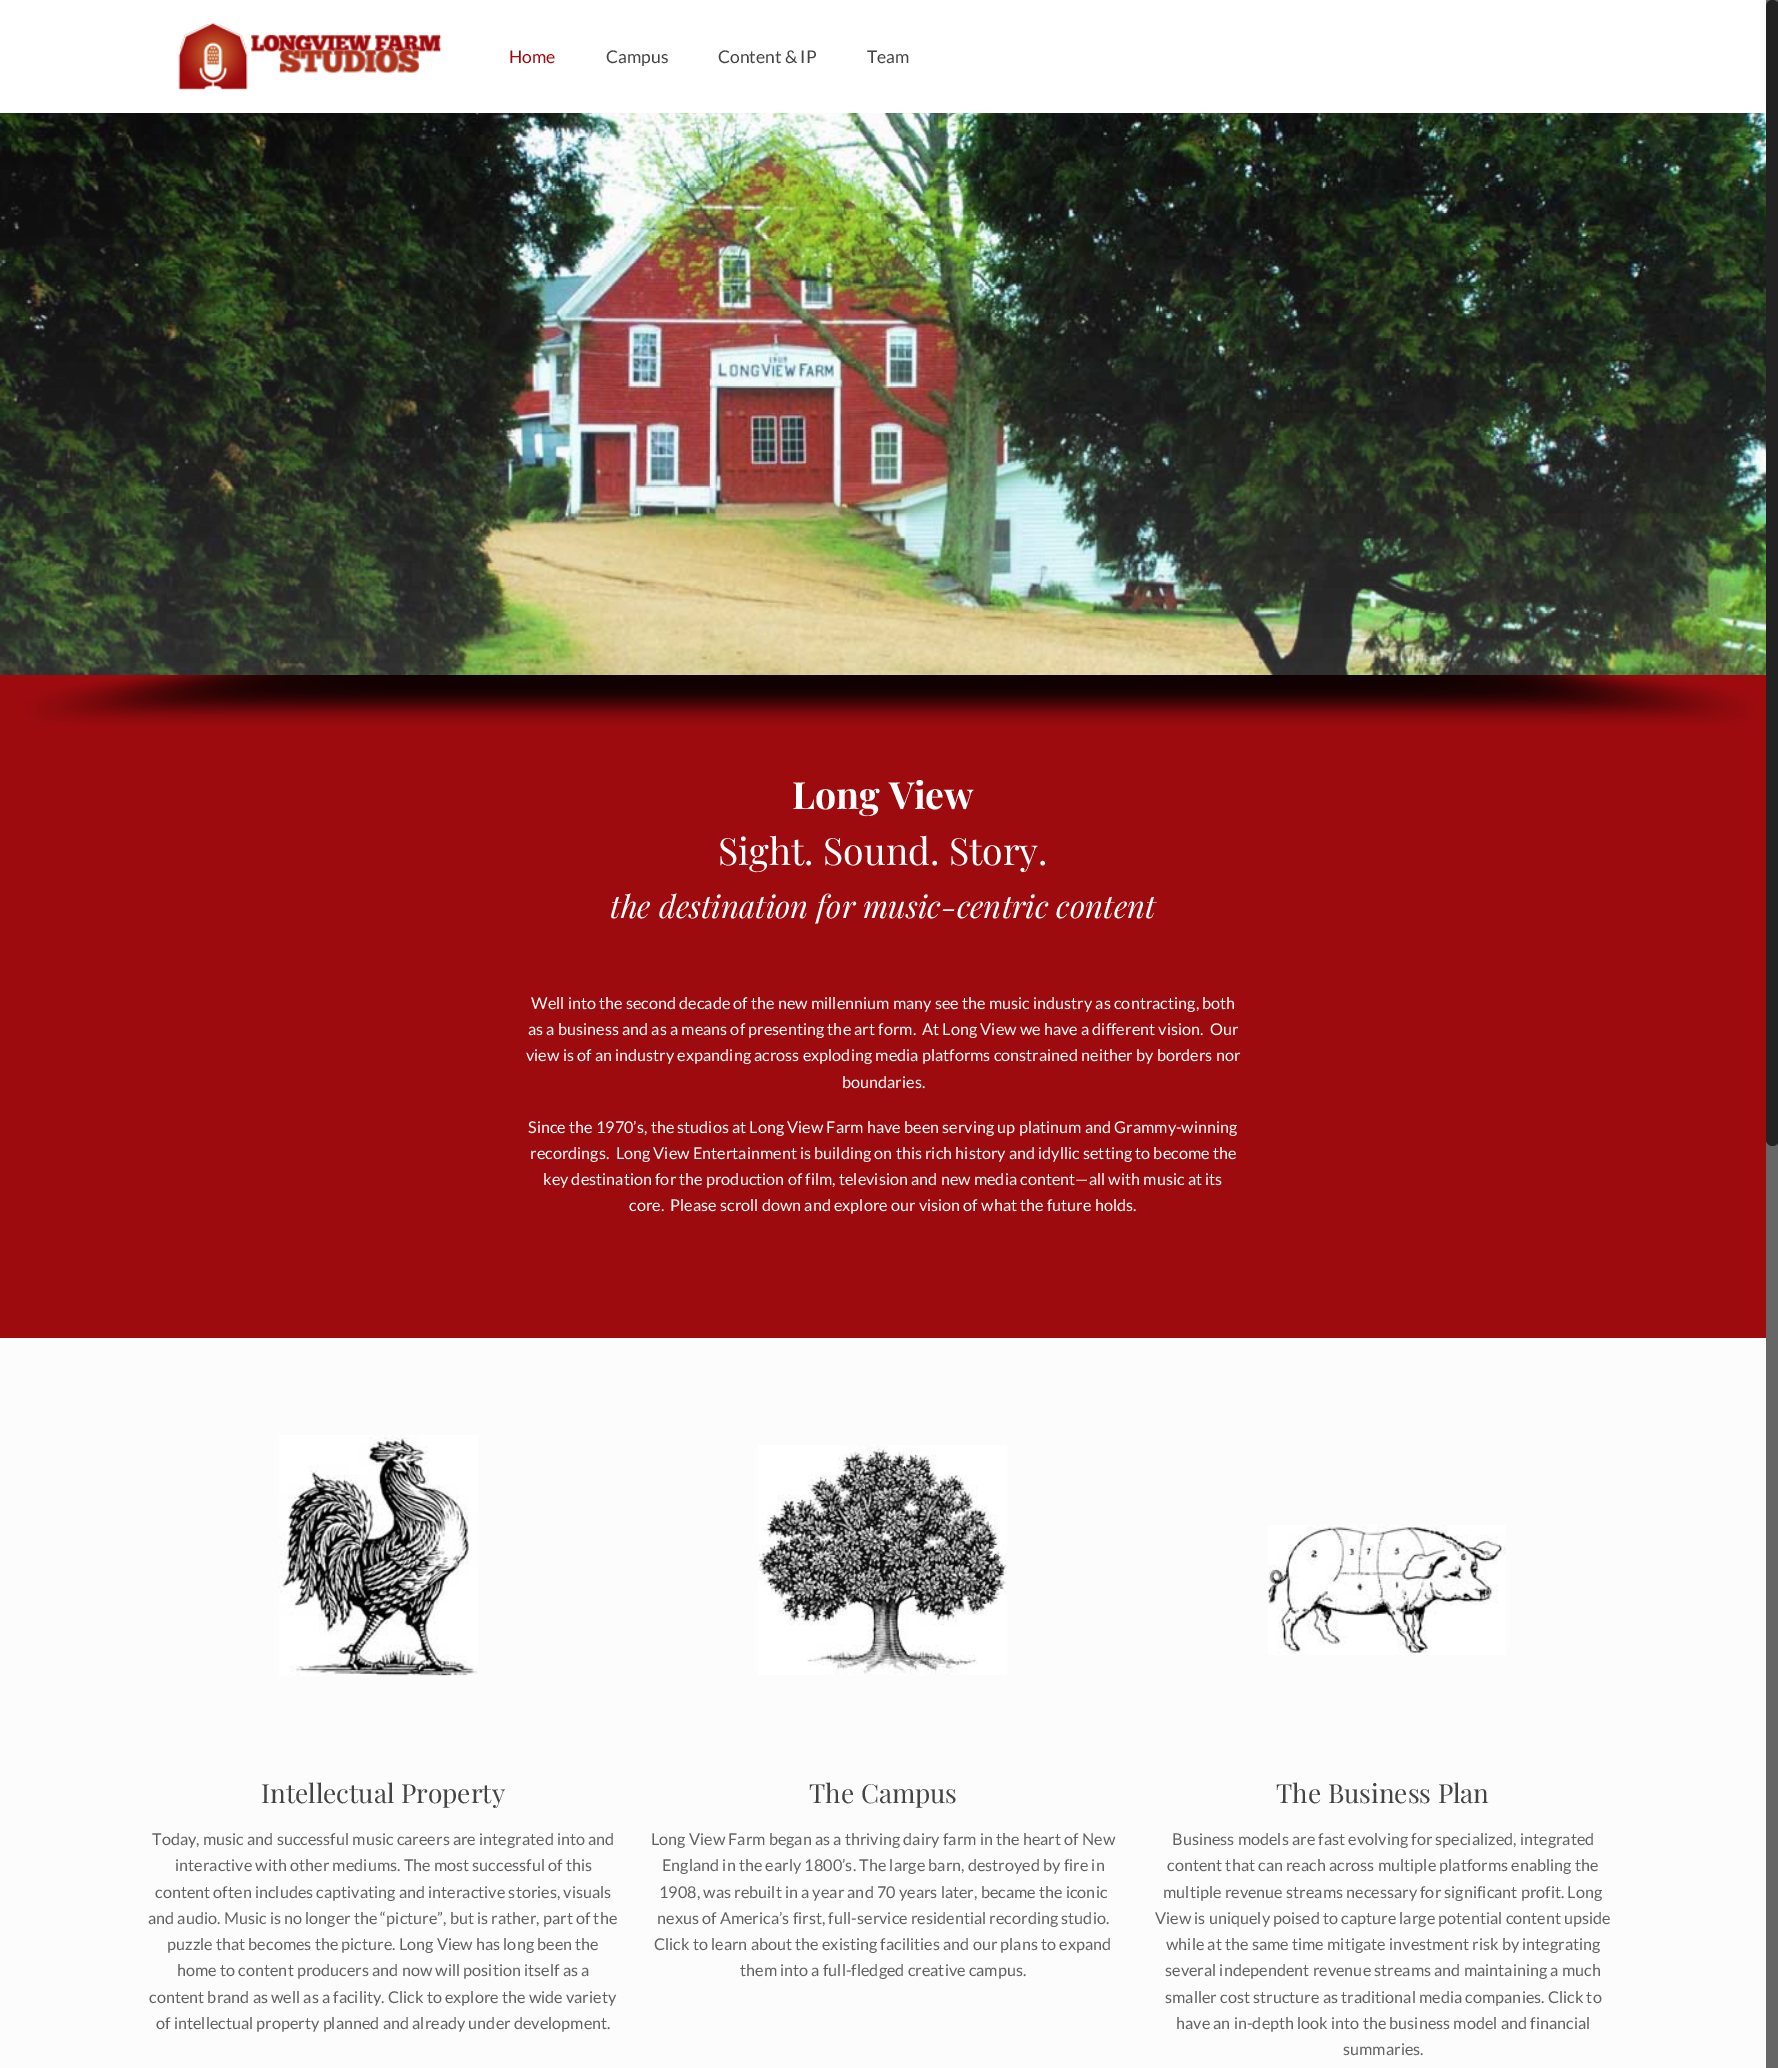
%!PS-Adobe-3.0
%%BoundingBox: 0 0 1778 2068
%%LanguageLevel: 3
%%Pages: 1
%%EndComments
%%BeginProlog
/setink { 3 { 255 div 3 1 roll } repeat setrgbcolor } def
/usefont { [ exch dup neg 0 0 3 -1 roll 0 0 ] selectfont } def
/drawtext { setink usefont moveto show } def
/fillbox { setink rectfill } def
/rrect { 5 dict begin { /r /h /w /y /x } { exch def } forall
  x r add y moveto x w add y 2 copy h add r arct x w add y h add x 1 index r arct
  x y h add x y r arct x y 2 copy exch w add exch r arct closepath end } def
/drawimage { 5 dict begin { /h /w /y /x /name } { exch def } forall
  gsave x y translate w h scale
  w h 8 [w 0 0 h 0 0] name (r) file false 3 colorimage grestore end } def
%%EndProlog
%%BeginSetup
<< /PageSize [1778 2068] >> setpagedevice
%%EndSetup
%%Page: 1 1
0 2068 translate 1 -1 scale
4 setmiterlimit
0 0 1778 2068 252 252 252 fillbox
0 0 1766 113 255 255 255 fillbox
(assets/img1.rgb) 178 22 264 69 drawimage
(Home) 509 63 /Lato-Regular 17.5 158 11 15 drawtext
(Campus) 606 63 /Lato-Regular 17.5 68 68 68 drawtext
(Content & IP) 718 63 /Lato-Regular 17.5 68 68 68 drawtext
(Team) 867 63 /Lato-Regular 17.5 68 68 68 drawtext
(assets/img2.rgb) 0 113 1766 25 drawimage
(assets/img3.rgb) 0 138 1766 25 drawimage
(assets/img4.rgb) 0 163 1766 25 drawimage
(assets/img5.rgb) 0 188 1766 25 drawimage
(assets/img6.rgb) 0 213 1766 25 drawimage
(assets/img7.rgb) 0 238 1766 25 drawimage
(assets/img8.rgb) 0 263 1766 25 drawimage
(assets/img9.rgb) 0 288 1766 25 drawimage
(assets/img10.rgb) 0 313 1766 25 drawimage
(assets/img11.rgb) 0 338 1766 25 drawimage
(assets/img12.rgb) 0 363 1766 25 drawimage
(assets/img13.rgb) 0 388 1766 25 drawimage
(assets/img14.rgb) 0 413 1766 25 drawimage
(assets/img15.rgb) 0 438 1766 25 drawimage
(assets/img16.rgb) 0 463 1766 25 drawimage
(assets/img17.rgb) 0 488 1766 25 drawimage
(assets/img18.rgb) 0 513 1766 25 drawimage
(assets/img19.rgb) 0 538 1766 25 drawimage
(assets/img20.rgb) 0 563 1766 25 drawimage
(assets/img21.rgb) 0 588 1766 25 drawimage
(assets/img22.rgb) 0 613 1766 25 drawimage
(assets/img23.rgb) 0 638 1766 25 drawimage
(assets/img24.rgb) 0 663 1766 12 drawimage
0 675 1766 663 158 11 15 fillbox
(assets/img25.rgb) 26 675 1728 51 drawimage
(Long View) 792 809 /PlayfairDisplay-Bold 37.5 255 255 255 drawtext
(Sight. Sound. Story.) 718 865 /PlayfairDisplay-Regular 37.5 255 255 255 drawtext
(the destination for music-centric content) 610 918 /PlayfairDisplay-Italic 31.25 255 255 255 drawtext
(Well into the second decade of the new millennium many see the music industry as contracting, both) 531 1009 /Lato-Regular 16.25 255 255 255 drawtext
(as a business and as a means of presenting the art form.  At Long View we have a different vision.  Our) 528 1035 /Lato-Regular 16.25 255 255 255 drawtext
(view is of an industry expanding across exploding media platforms constrained neither by borders nor) 526 1061 /Lato-Regular 16.25 255 255 255 drawtext
(boundaries.) 842 1088 /Lato-Regular 16.25 255 255 255 drawtext
(Since the 1970’s, the studios at Long View Farm have been serving up platinum and Grammy-winning) 528 1133 /Lato-Regular 16.25 255 255 255 drawtext
(recordings.  Long View Entertainment is building on this rich history and idyllic setting to become the) 530 1159 /Lato-Regular 16.25 255 255 255 drawtext
(key destination for the production of film, television and new media content—all with music at its) 543 1185 /Lato-Regular 16.25 255 255 255 drawtext
(core.  Please scroll down and explore our vision of what the future holds.) 629 1211 /Lato-Regular 16.25 255 255 255 drawtext
(assets/img26.rgb) 279 1435 199 241 drawimage
(Intellectual Property) 261 1803 /PlayfairDisplay-Regular 26.25 68 68 68 drawtext
(Today, music and successful music careers are integrated into and) 152 1845 /Lato-Regular 16.25 98 98 98 drawtext
(interactive with other mediums. The most successful of this) 175 1871 /Lato-Regular 16.25 98 98 98 drawtext
(content often includes captivating and interactive stories, visuals) 155 1898 /Lato-Regular 16.25 98 98 98 drawtext
(and audio. Music is no longer the “picture”, but is rather, part of the) 148 1924 /Lato-Regular 16.25 98 98 98 drawtext
(puzzle that becomes the picture. Long View has long been the) 167 1950 /Lato-Regular 16.25 98 98 98 drawtext
(home to content producers and now will position itself as a) 177 1976 /Lato-Regular 16.25 98 98 98 drawtext
(content brand as well as a facility. Click to explore the wide variety) 149 2003 /Lato-Regular 16.25 98 98 98 drawtext
(of intellectual property planned and already under development.) 156 2029 /Lato-Regular 16.25 98 98 98 drawtext
(assets/img27.rgb) 758 1445 249 230 drawimage
(The Campus) 809 1803 /PlayfairDisplay-Regular 26.25 68 68 68 drawtext
(Long View Farm began as a thriving dairy farm in the heart of New) 651 1845 /Lato-Regular 16.25 98 98 98 drawtext
(England in the early 1800’s. The large barn, destroyed by fire in) 662 1871 /Lato-Regular 16.25 98 98 98 drawtext
(1908, was rebuilt in a year and 70 years later, became the iconic) 659 1898 /Lato-Regular 16.25 98 98 98 drawtext
(nexus of America’s first, full-service residential recording studio.) 657 1924 /Lato-Regular 16.25 98 98 98 drawtext
(Click to learn about the existing facilities and our plans to expand) 654 1950 /Lato-Regular 16.25 98 98 98 drawtext
(them into a full-fledged creative campus.) 740 1976 /Lato-Regular 16.25 98 98 98 drawtext
(assets/img28.rgb) 1268 1525 238 130 drawimage
(The Business Plan) 1276 1803 /PlayfairDisplay-Regular 26.25 68 68 68 drawtext
(Business models are fast evolving for specialized, integrated) 1172 1845 /Lato-Regular 16.25 98 98 98 drawtext
(content that can reach across multiple platforms enabling the) 1167 1871 /Lato-Regular 16.25 98 98 98 drawtext
(multiple revenue streams necessary for significant profit. Long) 1163 1898 /Lato-Regular 16.25 98 98 98 drawtext
(View is uniquely poised to capture large potential content upside) 1155 1924 /Lato-Regular 16.25 98 98 98 drawtext
(while at the same time mitigate investment risk by integrating) 1166 1950 /Lato-Regular 16.25 98 98 98 drawtext
(several independent revenue streams and maintaining a much) 1165 1976 /Lato-Regular 16.25 98 98 98 drawtext
(smaller cost structure as traditional media companies. Click to) 1165 2003 /Lato-Regular 16.25 98 98 98 drawtext
(have an in-depth look into the business model and financial) 1176 2029 /Lato-Regular 16.25 98 98 98 drawtext
(summaries.) 1343 2055 /Lato-Regular 16.25 98 98 98 drawtext
1766 0 12 2068 102 102 102 fillbox
34 34 34 setink
1766 0 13 1146 6.5 rrect fill
showpage
%%EOF
